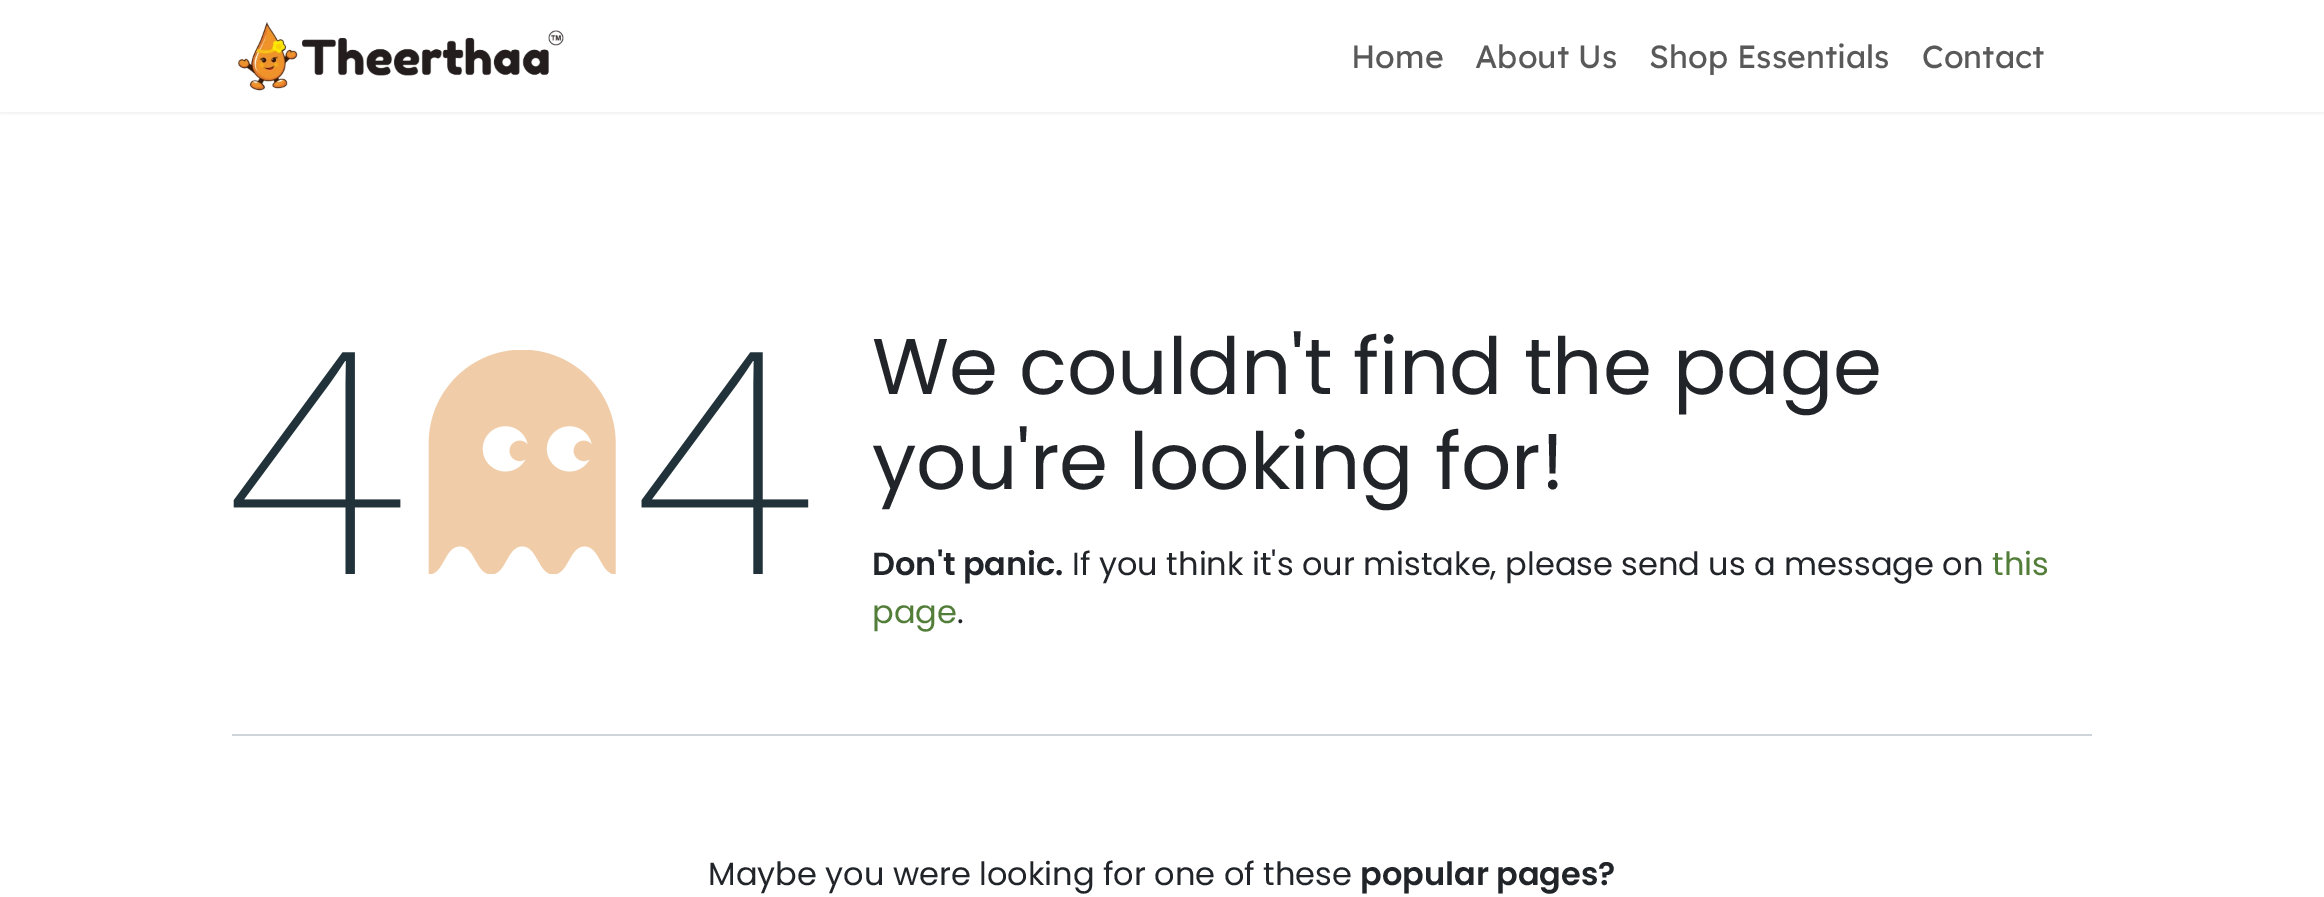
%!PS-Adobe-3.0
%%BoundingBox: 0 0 2324 897
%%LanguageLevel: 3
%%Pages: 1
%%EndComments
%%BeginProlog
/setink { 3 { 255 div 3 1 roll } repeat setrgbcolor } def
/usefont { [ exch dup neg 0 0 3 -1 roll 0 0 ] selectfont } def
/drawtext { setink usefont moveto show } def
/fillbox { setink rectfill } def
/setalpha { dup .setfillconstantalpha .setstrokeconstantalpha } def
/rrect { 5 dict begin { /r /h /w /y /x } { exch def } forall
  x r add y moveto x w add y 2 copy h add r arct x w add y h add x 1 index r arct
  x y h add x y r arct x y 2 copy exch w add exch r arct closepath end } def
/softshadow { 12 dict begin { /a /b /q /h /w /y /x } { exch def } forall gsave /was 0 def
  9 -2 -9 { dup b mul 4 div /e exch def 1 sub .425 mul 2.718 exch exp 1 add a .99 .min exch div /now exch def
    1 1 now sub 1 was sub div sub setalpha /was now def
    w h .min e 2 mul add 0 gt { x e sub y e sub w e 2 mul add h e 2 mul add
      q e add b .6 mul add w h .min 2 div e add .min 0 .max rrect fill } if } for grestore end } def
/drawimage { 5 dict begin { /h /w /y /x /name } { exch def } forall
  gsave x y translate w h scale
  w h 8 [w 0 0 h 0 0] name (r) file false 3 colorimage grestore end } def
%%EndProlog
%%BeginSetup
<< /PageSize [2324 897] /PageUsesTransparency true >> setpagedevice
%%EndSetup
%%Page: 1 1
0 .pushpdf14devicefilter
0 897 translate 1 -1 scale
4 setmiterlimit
0 0 2324 897 255 255 255 fillbox
gsave
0 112 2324 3 rectclip
0 0 0 setink
0 0 2324 112 0 3 0.1 softshadow
grestore
(assets/img1.rgb) 238 22 326 69 drawimage
(Home) 1351 68 /Lexend-Regular 32 89 89 89 drawtext
(About Us) 1475 68 /Lexend-Regular 32 89 89 89 drawtext
(Shop Essentials) 1649 68 /Lexend-Regular 32 89 89 89 drawtext
(Contact) 1922 68 /Lexend-Regular 32 89 89 89 drawtext
(assets/img2.rgb) 233 350 576 224 drawimage
(We couldn't find the page) 872 394 /Poppins-Regular 78.9 33 37 41 drawtext
(you're looking for!) 872 489 /Poppins-Regular 78.9 33 37 41 drawtext
(Don't panic.) 872 575 /Poppins-SemiBold 32 33 37 41 drawtext
(If you think it's our mistake, please send us a message on) 1072 575 /Poppins-Regular 32 33 37 41 drawtext
(this) 1992 575 /Poppins-Regular 32 82 126 57 drawtext
(page) 872 623 /Poppins-Regular 32 82 126 57 drawtext
(.) 957 623 /Poppins-Regular 32 33 37 41 drawtext
232 734 1860 2 206 212 218 fillbox
(Maybe you were looking for one of these) 708 885 /Poppins-Regular 32 33 37 41 drawtext
(popular pages?) 1360 885 /Poppins-SemiBold 32 33 37 41 drawtext
.poppdf14devicefilter showpage
%%EOF
